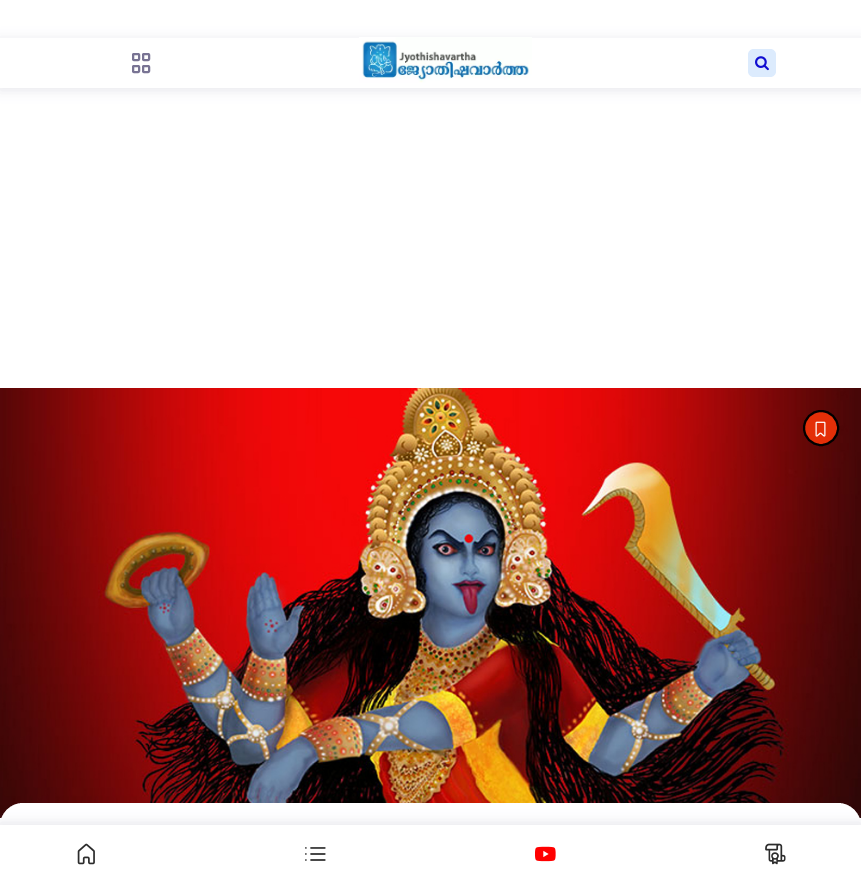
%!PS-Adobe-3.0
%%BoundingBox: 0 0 861 883
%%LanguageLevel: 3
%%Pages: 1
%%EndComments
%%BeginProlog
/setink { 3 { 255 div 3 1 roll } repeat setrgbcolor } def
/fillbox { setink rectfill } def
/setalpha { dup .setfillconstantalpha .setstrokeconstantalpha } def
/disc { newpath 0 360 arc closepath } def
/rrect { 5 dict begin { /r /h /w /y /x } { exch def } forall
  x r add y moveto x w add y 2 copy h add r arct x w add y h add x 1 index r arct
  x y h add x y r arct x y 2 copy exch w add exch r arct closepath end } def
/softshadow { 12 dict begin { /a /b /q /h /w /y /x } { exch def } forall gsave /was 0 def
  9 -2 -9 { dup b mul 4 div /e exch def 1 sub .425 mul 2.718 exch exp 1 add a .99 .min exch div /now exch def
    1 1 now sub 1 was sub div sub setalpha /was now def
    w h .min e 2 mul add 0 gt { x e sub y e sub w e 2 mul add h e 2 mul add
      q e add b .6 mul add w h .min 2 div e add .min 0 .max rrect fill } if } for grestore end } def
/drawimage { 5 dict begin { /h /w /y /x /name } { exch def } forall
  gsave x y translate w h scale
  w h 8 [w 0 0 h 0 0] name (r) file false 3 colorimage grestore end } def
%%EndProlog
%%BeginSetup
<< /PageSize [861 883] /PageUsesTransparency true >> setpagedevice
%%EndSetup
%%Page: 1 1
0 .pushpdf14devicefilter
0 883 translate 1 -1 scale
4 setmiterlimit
0 0 861 883 255 255 255 fillbox
gsave
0 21 moveto 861 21 lineto 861 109 lineto 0 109 lineto closepath 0 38 moveto 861 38 lineto 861 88 lineto 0 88 lineto closepath eoclip newpath
116 119 148 setink
0 40 861 50 0 6 0.18 softshadow
grestore
121 116 148 setink
2 setlinewidth
133 54 6 6 1 rrect stroke
143 54 6 6 1 rrect stroke
133 66 6 6 1 rrect stroke
143 66 6 6 1 rrect stroke
(assets/img1.rgb) 359 37 173 46 drawimage
220 235 253 setink
748 49 28 28 6 rrect fill
(assets/img2.rgb) 755 56 14 15 drawimage
(assets/img3.rgb) 0 388 861 430 drawimage
228 47 8 setink
821 428 17 disc gsave fill grestore
0 0 0 setink
stroke
(assets/img4.rgb) 815 421 11 16 drawimage
255 255 255 setink
23 803 moveto 838 803 lineto 850.5 803 861 813.5 861 826 curveto 861 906 lineto 0 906 lineto 0 826 lineto 0 813.5 10.5 803 23 803 curveto closepath fill
116 119 148 setink
0 823 861 58 0 6 0.18 softshadow
0 825 861 58 255 255 255 fillbox
(assets/img5.rgb) 77 843 18 22 drawimage
(assets/img6.rgb) 305 847 21 14 drawimage
(assets/img7.rgb) 535 846 21 16 drawimage
(assets/img8.rgb) 765 843 21 22 drawimage
.poppdf14devicefilter showpage
%%EOF
